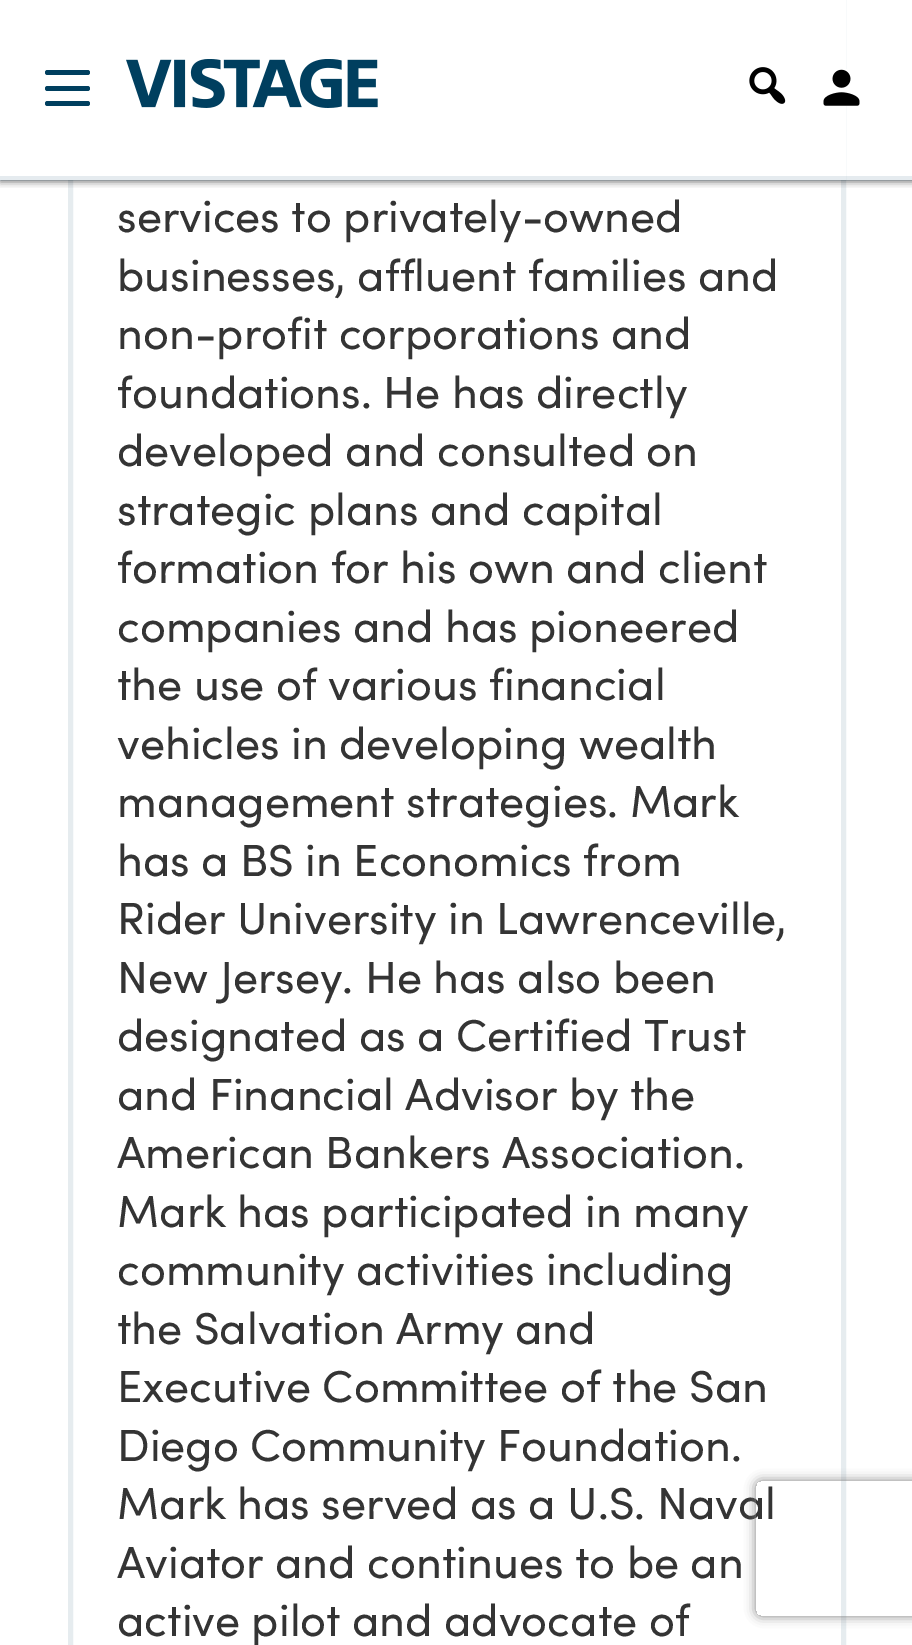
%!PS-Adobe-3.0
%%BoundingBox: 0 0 912 1645
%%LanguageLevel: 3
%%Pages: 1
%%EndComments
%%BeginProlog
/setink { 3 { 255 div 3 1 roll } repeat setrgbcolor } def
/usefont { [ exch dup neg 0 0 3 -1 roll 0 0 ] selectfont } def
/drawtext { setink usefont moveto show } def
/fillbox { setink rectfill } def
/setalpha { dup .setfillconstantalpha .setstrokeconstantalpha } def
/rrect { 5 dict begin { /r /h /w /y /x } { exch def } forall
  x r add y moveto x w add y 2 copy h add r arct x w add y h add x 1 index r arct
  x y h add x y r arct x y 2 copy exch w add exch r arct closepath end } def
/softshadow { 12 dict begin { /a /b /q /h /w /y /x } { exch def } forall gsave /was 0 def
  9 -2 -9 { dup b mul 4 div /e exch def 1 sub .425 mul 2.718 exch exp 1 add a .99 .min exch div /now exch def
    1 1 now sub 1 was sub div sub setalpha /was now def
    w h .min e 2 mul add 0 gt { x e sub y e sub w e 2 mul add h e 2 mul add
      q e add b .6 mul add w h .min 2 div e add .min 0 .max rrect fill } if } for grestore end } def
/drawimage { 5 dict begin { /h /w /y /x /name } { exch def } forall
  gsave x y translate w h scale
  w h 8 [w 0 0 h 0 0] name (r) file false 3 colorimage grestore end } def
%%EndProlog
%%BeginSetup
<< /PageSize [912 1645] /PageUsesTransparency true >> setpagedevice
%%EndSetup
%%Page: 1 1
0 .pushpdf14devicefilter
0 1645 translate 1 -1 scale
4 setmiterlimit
0 0 912 1645 255 255 255 fillbox
230 236 239 setink
5 setlinewidth
70.5 -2.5 773 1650 rectstroke
68 0 778 180 255 255 255 fillbox
gsave
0 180 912 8 rectclip
0 0 0 setink
0 2 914 180 0 3.5 0.5 softshadow
grestore
0.1 setalpha
0 176 912 5 0 63 95 fillbox
1 setalpha
45 86 45 5 2.5 rrect fill
45 70 45 5 2.5 rrect fill
45 101 45 5 2.5 rrect fill
(assets/img1.rgb) 126 59 252 49 drawimage
(assets/img2.rgb) 749 67 37 37 drawimage
(assets/img3.rgb) 823 69 37 37 drawimage
(services to privately-owned) 117 232 /Sofia-Regular 45 52 52 52 drawtext
(businesses, affluent families and) 117 291 /Sofia-Regular 45 52 52 52 drawtext
(non-profit corporations and) 117 349 /Sofia-Regular 45 52 52 52 drawtext
(foundations. He has directly) 117 408 /Sofia-Regular 45 52 52 52 drawtext
(developed and consulted on) 117 466 /Sofia-Regular 45 52 52 52 drawtext
(strategic plans and capital) 117 525 /Sofia-Regular 45 52 52 52 drawtext
(formation for his own and client) 117 583 /Sofia-Regular 45 52 52 52 drawtext
(companies and has pioneered) 117 642 /Sofia-Regular 45 52 52 52 drawtext
(the use of various financial) 117 700 /Sofia-Regular 45 52 52 52 drawtext
(vehicles in developing wealth) 117 759 /Sofia-Regular 45 52 52 52 drawtext
(management strategies. Mark) 117 817 /Sofia-Regular 45 52 52 52 drawtext
(has a BS in Economics from) 117 876 /Sofia-Regular 45 52 52 52 drawtext
(Rider University in Lawrenceville,) 117 934 /Sofia-Regular 45 52 52 52 drawtext
(New Jersey. He has also been) 117 993 /Sofia-Regular 45 52 52 52 drawtext
(designated as a Certified Trust) 117 1051 /Sofia-Regular 45 52 52 52 drawtext
(and Financial Advisor by the) 117 1110 /Sofia-Regular 45 52 52 52 drawtext
(American Bankers Association.) 117 1168 /Sofia-Regular 45 52 52 52 drawtext
(Mark has participated in many) 117 1227 /Sofia-Regular 45 52 52 52 drawtext
(community activities including) 117 1285 /Sofia-Regular 45 52 52 52 drawtext
(the Salvation Army and) 117 1344 /Sofia-Regular 45 52 52 52 drawtext
(Executive Committee of the San) 117 1402 /Sofia-Regular 45 52 52 52 drawtext
(Diego Community Foundation.) 117 1461 /Sofia-Regular 45 52 52 52 drawtext
(Mark has served as a U.S. Naval) 117 1519 /Sofia-Regular 45 52 52 52 drawtext
(Aviator and continues to be an) 117 1578 /Sofia-Regular 45 52 52 52 drawtext
(active pilot and advocate of) 117 1636 /Sofia-Regular 45 52 52 52 drawtext
gsave
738 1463 moveto 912 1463 lineto 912 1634 lineto 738 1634 lineto closepath 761 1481 moveto 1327 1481 lineto 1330 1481 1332 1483 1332 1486 curveto 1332 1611 lineto 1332 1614 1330 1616 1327 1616 curveto 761 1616 lineto 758 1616 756 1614 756 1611 curveto 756 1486 lineto 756 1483 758 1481 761 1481 curveto closepath eoclip newpath
128 128 128 setink
756 1481 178 135 5 5.5 1 softshadow
grestore
.poppdf14devicefilter showpage
%%EOF
